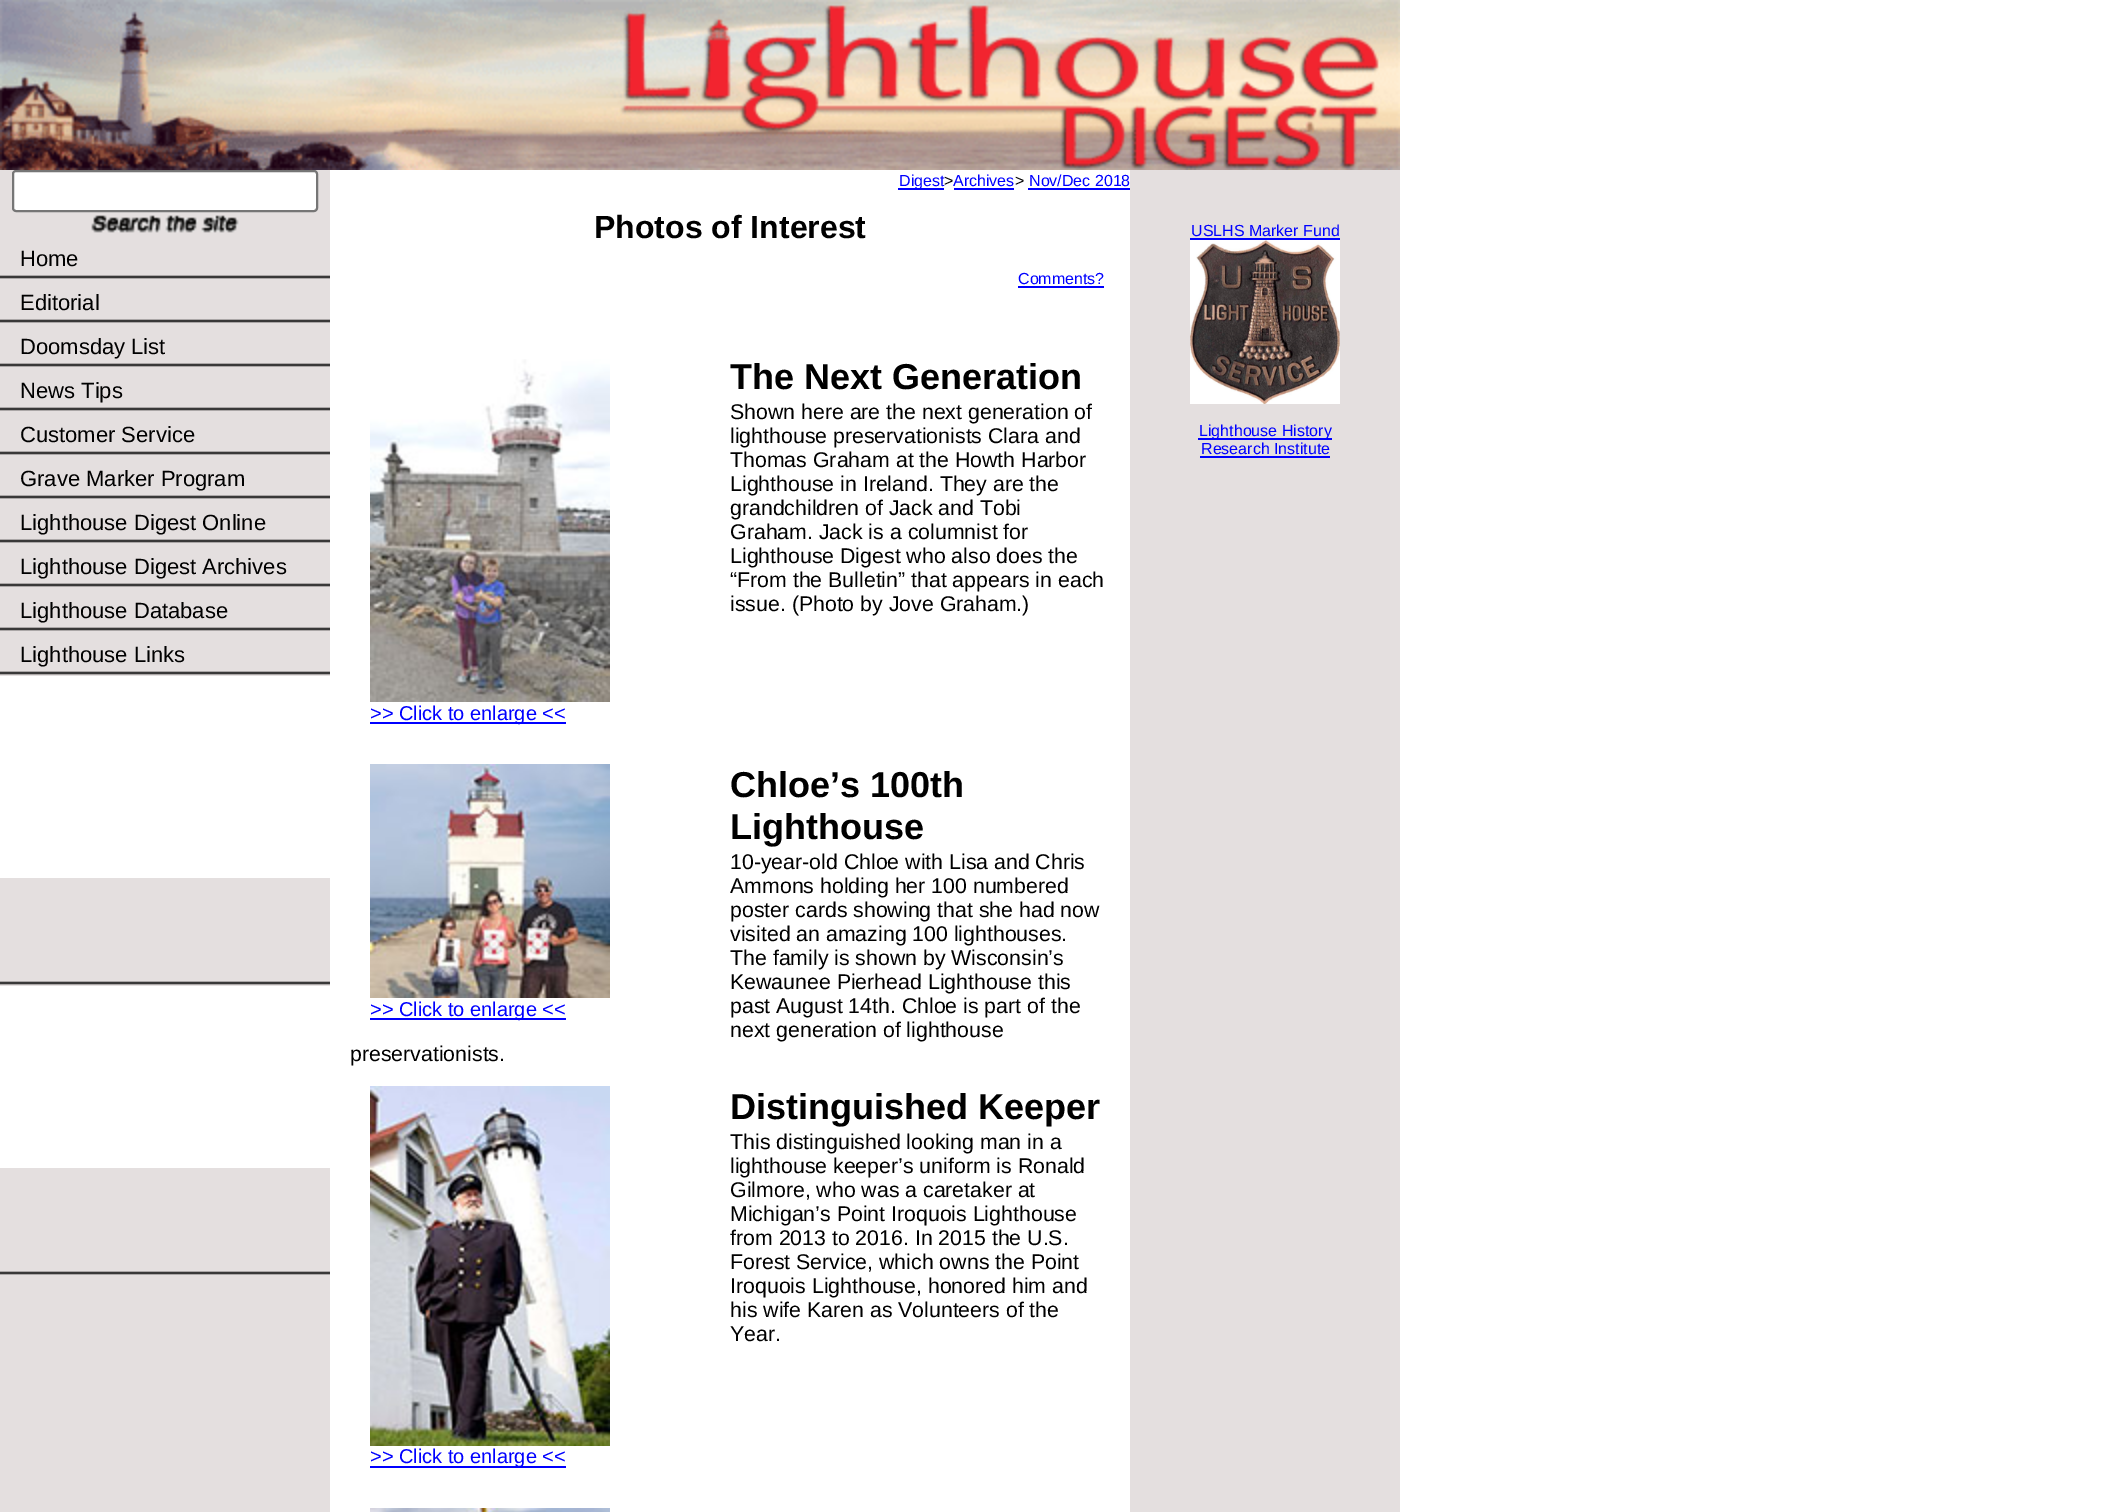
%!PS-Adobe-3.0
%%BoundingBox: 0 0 2106 1512
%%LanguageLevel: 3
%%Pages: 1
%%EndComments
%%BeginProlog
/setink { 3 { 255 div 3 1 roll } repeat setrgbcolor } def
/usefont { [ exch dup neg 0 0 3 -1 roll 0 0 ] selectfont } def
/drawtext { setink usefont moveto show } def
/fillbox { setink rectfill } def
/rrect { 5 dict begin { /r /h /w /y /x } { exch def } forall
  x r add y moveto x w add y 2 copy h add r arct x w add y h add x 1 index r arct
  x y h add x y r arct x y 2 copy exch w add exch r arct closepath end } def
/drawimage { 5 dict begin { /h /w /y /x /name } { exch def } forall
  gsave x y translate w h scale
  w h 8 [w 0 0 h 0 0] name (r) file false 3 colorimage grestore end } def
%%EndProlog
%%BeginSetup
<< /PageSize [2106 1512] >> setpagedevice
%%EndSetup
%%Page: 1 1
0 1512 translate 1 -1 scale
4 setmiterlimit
0 0 2106 1512 255 255 255 fillbox
(assets/img1.rgb) 0 0 1400 170 drawimage
0 170 330 1342 228 223 223 fillbox
255 255 255 setink
13 171 304 40 3 rrect gsave fill grestore
118 118 118 setink
2 setlinewidth
stroke
(assets/img2.rgb) 91 215 148 18 drawimage
(assets/img3.rgb) 0 236 330 44 drawimage
(Home) 20 266 /LiberationSans-Regular 22 0 0 0 drawtext
(assets/img3.rgb) 0 280 330 44 drawimage
(Editorial) 20 310 /LiberationSans-Regular 22 0 0 0 drawtext
(assets/img3.rgb) 0 324 330 44 drawimage
(Doomsday List) 20 354 /LiberationSans-Regular 22 0 0 0 drawtext
(assets/img3.rgb) 0 368 330 44 drawimage
(News Tips) 20 398 /LiberationSans-Regular 22 0 0 0 drawtext
(assets/img3.rgb) 0 412 330 44 drawimage
(Customer Service) 20 442 /LiberationSans-Regular 22 0 0 0 drawtext
(assets/img3.rgb) 0 456 330 44 drawimage
(Grave Marker Program) 20 486 /LiberationSans-Regular 22 0 0 0 drawtext
(assets/img3.rgb) 0 500 330 44 drawimage
(Lighthouse Digest Online) 20 530 /LiberationSans-Regular 22 0 0 0 drawtext
(assets/img3.rgb) 0 544 330 44 drawimage
(Lighthouse Digest Archives) 20 574 /LiberationSans-Regular 22 0 0 0 drawtext
(assets/img3.rgb) 0 588 330 44 drawimage
(Lighthouse Database) 20 618 /LiberationSans-Regular 22 0 0 0 drawtext
(assets/img3.rgb) 0 632 330 44 drawimage
(Lighthouse Links) 20 662 /LiberationSans-Regular 22 0 0 0 drawtext
0 676 330 202 255 255 255 fillbox
(assets/img4.rgb) 0 878 330 108 drawimage
0 986 330 182 255 255 255 fillbox
(assets/img4.rgb) 0 1168 330 108 drawimage
898 188 46 2 0 0 255 fillbox
(Digest) 899 186 /LiberationSans-Regular 16 0 0 255 drawtext
(>) 944 186 /LiberationSans-Regular 16 0 0 0 drawtext
(Archives) 953 186 /LiberationSans-Regular 16 0 0 255 drawtext
954 188 60 2 0 0 255 fillbox
(>) 1015 186 /LiberationSans-Regular 16 0 0 0 drawtext
(Nov/Dec 2018) 1029 186 /LiberationSans-Regular 16 0 0 255 drawtext
1028 188 102 2 0 0 255 fillbox
(Photos of Interest) 594 238 /LiberationSans-Bold 32 0 0 0 drawtext
(Comments?) 1018 284 /LiberationSans-Regular 16 0 0 255 drawtext
1018 286 86 2 0 0 255 fillbox
(The Next Generation) 730 389 /LiberationSans-Bold 36 0 0 0 drawtext
(Shown here are the next generation of) 730 419 /LiberationSans-Regular 21.3 0 0 0 drawtext
(lighthouse preservationists Clara and) 730 443 /LiberationSans-Regular 21.3 0 0 0 drawtext
(Thomas Graham at the Howth Harbor) 730 467 /LiberationSans-Regular 21.3 0 0 0 drawtext
(Lighthouse in Ireland. They are the) 730 491 /LiberationSans-Regular 21.3 0 0 0 drawtext
(grandchildren of Jack and Tobi) 730 515 /LiberationSans-Regular 21.3 0 0 0 drawtext
(Graham. Jack is a columnist for) 730 539 /LiberationSans-Regular 21.3 0 0 0 drawtext
(Lighthouse Digest who also does the) 730 563 /LiberationSans-Regular 21.3 0 0 0 drawtext
(“From the Bulletin” that appears in each) 730 587 /LiberationSans-Regular 21.3 0 0 0 drawtext
(issue. \(Photo by Jove Graham.\)) 730 611 /LiberationSans-Regular 21.3 0 0 0 drawtext
(assets/img5.rgb) 370 764 240 234 drawimage
370 1018 196 2 0 0 255 fillbox
(>> Click to enlarge <<) 370 1016 /LiberationSans-Regular 20 0 0 255 drawtext
(assets/img6.rgb) 370 359 240 343 drawimage
370 722 196 2 0 0 255 fillbox
(>> Click to enlarge <<) 370 720 /LiberationSans-Regular 20 0 0 255 drawtext
(Chloe’s 100th) 730 797 /LiberationSans-Bold 36 0 0 0 drawtext
(Lighthouse) 730 839 /LiberationSans-Bold 36 0 0 0 drawtext
(10-year-old Chloe with Lisa and Chris) 730 869 /LiberationSans-Regular 21.3 0 0 0 drawtext
(Ammons holding her 100 numbered) 730 893 /LiberationSans-Regular 21.3 0 0 0 drawtext
(poster cards showing that she had now) 730 917 /LiberationSans-Regular 21.3 0 0 0 drawtext
(visited an amazing 100 lighthouses.) 730 941 /LiberationSans-Regular 21.3 0 0 0 drawtext
(The family is shown by Wisconsin’s) 730 965 /LiberationSans-Regular 21.3 0 0 0 drawtext
(Kewaunee Pierhead Lighthouse this) 730 989 /LiberationSans-Regular 21.3 0 0 0 drawtext
(past August 14th. Chloe is part of the) 730 1013 /LiberationSans-Regular 21.3 0 0 0 drawtext
(next generation of lighthouse) 730 1037 /LiberationSans-Regular 21.3 0 0 0 drawtext
(preservationists.) 350 1061 /LiberationSans-Regular 21.3 0 0 0 drawtext
(assets/img7.rgb) 370 1086 240 360 drawimage
370 1466 196 2 0 0 255 fillbox
(>> Click to enlarge <<) 370 1463 /LiberationSans-Regular 20 0 0 255 drawtext
(Distinguished Keeper) 730 1119 /LiberationSans-Bold 36 0 0 0 drawtext
(This distinguished looking man in a) 730 1149 /LiberationSans-Regular 21.3 0 0 0 drawtext
(lighthouse keeper’s uniform is Ronald) 730 1173 /LiberationSans-Regular 21.3 0 0 0 drawtext
(Gilmore, who was a caretaker at) 730 1197 /LiberationSans-Regular 21.3 0 0 0 drawtext
(Michigan’s Point Iroquois Lighthouse) 730 1221 /LiberationSans-Regular 21.3 0 0 0 drawtext
(from 2013 to 2016. In 2015 the U.S.) 730 1245 /LiberationSans-Regular 21.3 0 0 0 drawtext
(Forest Service, which owns the Point) 730 1269 /LiberationSans-Regular 21.3 0 0 0 drawtext
(Iroquois Lighthouse, honored him and) 730 1293 /LiberationSans-Regular 21.3 0 0 0 drawtext
(his wife Karen as Volunteers of the) 730 1317 /LiberationSans-Regular 21.3 0 0 0 drawtext
(Year.) 730 1341 /LiberationSans-Regular 21.3 0 0 0 drawtext
(assets/img8.rgb) 370 1508 240 4 drawimage
1130 170 270 1342 228 223 223 fillbox
(USLHS Marker Fund) 1191 236 /LiberationSans-Regular 16 0 0 255 drawtext
1190 238 150 2 0 0 255 fillbox
(assets/img9.rgb) 1190 240 150 164 drawimage
1198 438 134 2 0 0 255 fillbox
(Lighthouse History) 1199 436 /LiberationSans-Regular 16 0 0 255 drawtext
(Research Institute) 1201 454 /LiberationSans-Regular 16 0 0 255 drawtext
1200 456 130 2 0 0 255 fillbox
showpage
%%EOF
